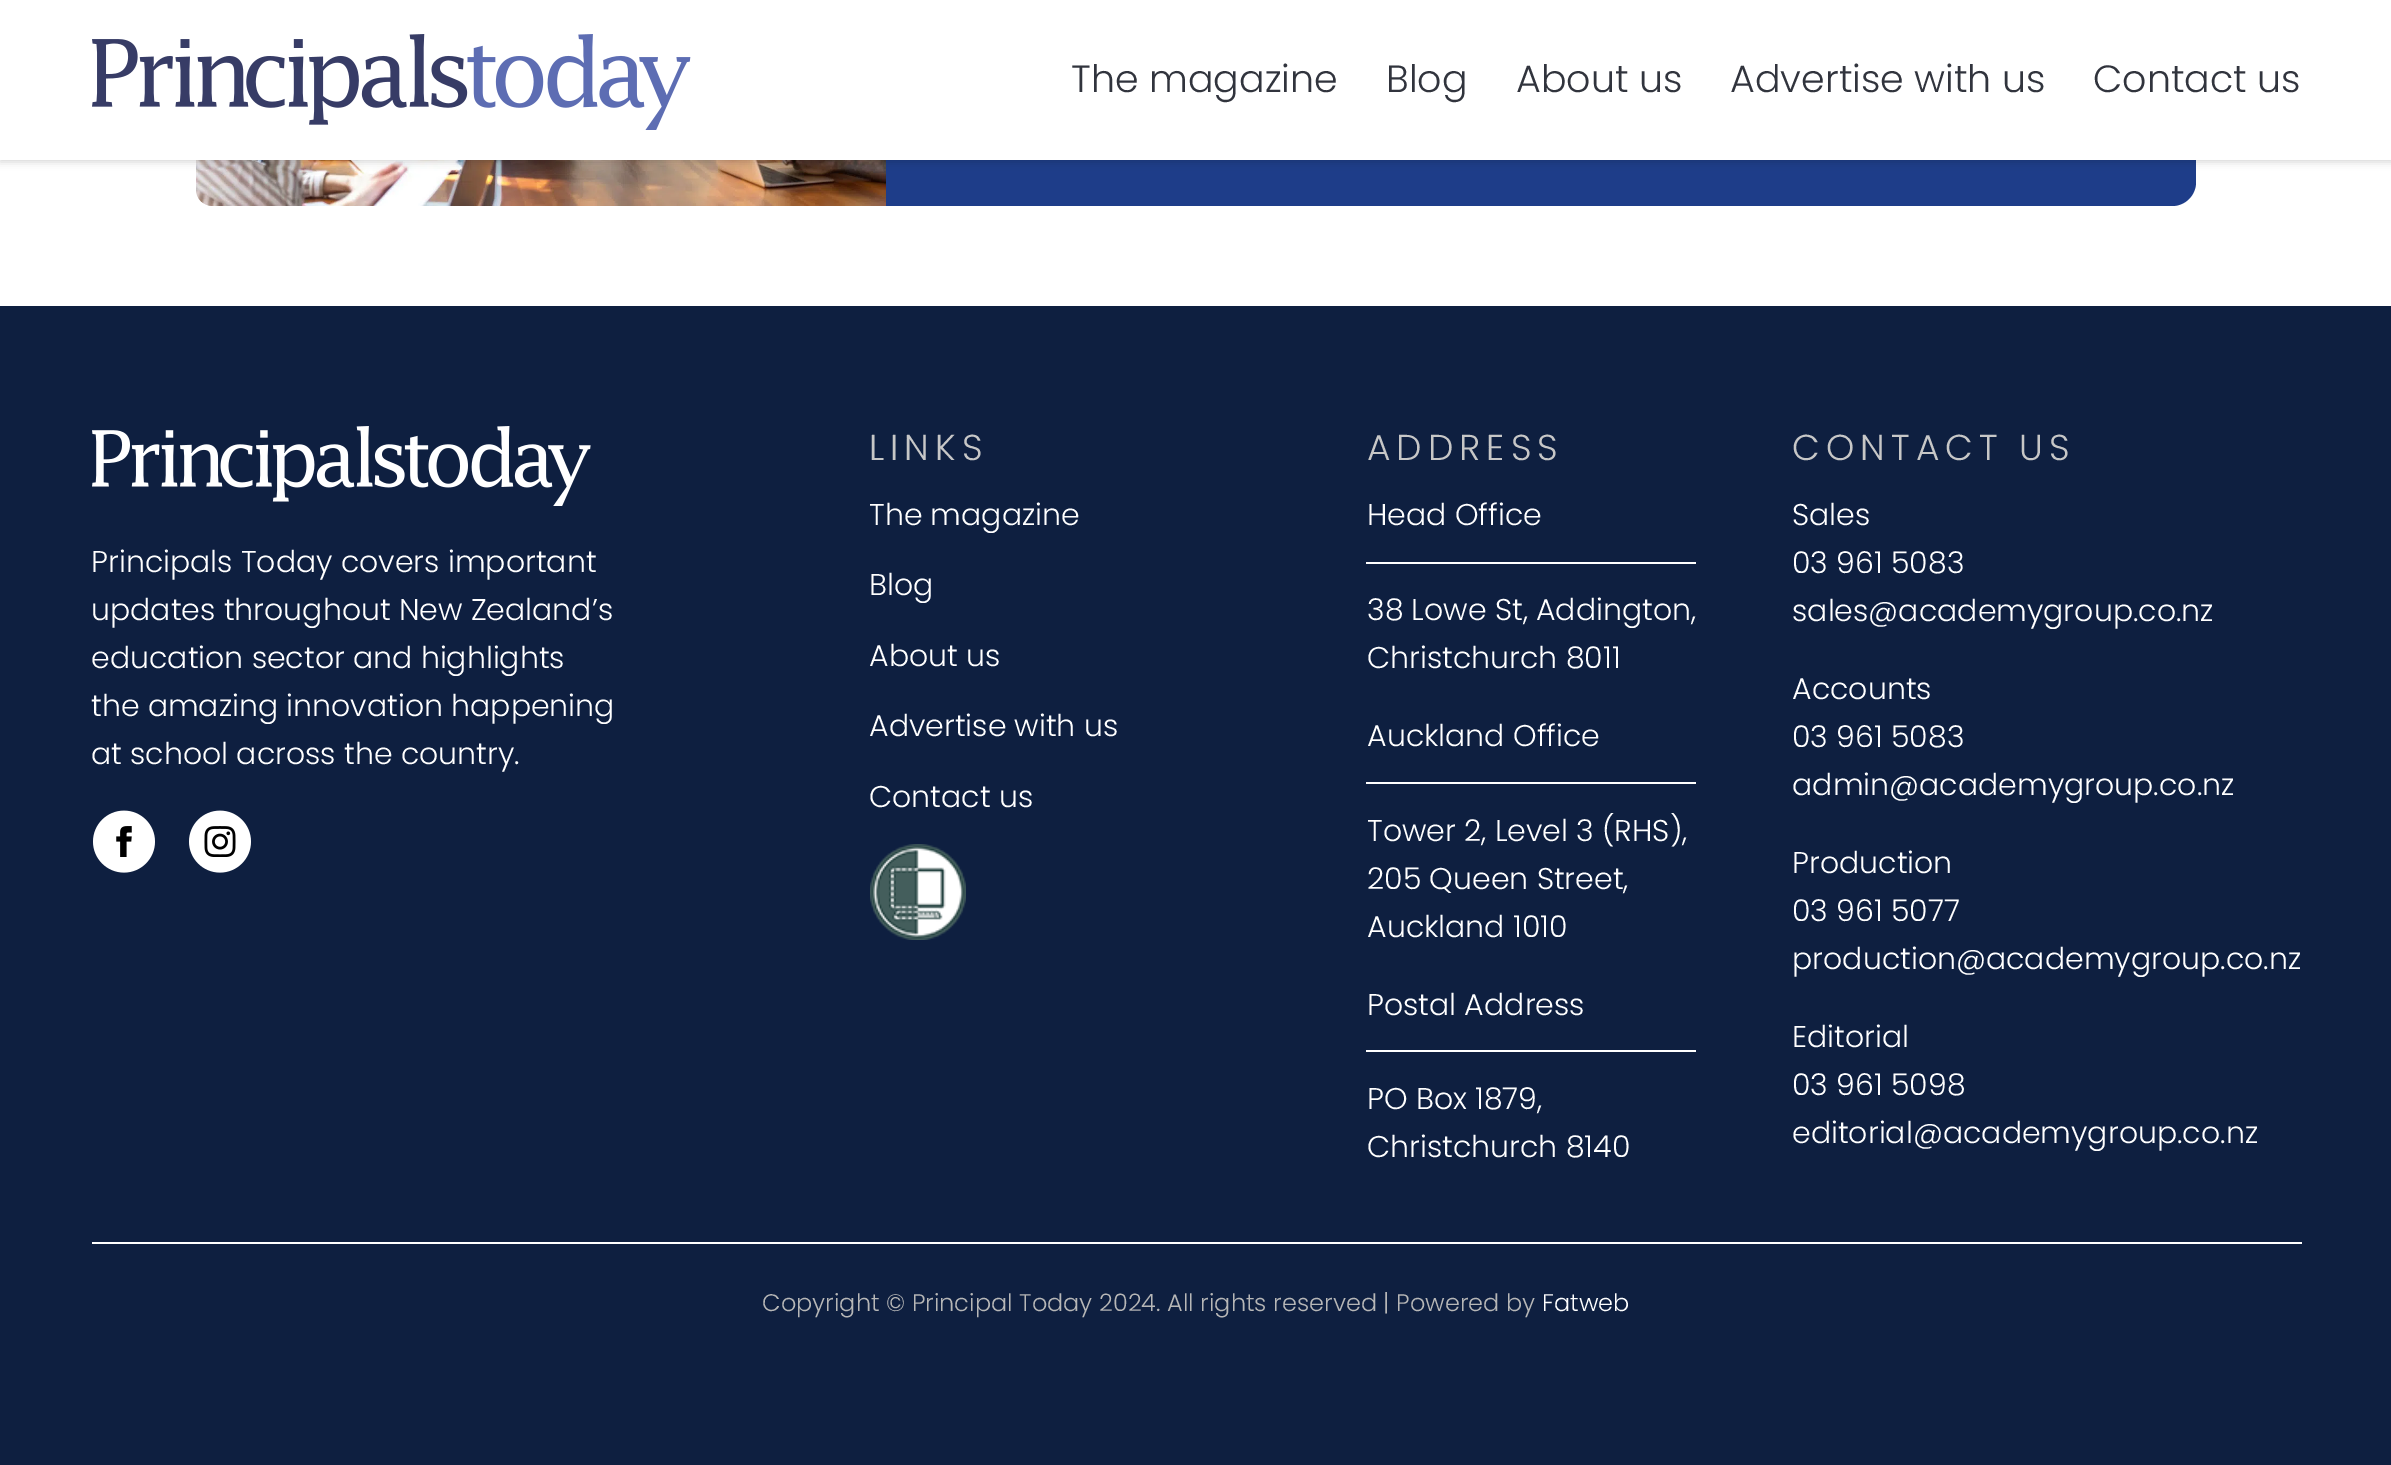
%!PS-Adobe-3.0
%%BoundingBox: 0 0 2391 1465
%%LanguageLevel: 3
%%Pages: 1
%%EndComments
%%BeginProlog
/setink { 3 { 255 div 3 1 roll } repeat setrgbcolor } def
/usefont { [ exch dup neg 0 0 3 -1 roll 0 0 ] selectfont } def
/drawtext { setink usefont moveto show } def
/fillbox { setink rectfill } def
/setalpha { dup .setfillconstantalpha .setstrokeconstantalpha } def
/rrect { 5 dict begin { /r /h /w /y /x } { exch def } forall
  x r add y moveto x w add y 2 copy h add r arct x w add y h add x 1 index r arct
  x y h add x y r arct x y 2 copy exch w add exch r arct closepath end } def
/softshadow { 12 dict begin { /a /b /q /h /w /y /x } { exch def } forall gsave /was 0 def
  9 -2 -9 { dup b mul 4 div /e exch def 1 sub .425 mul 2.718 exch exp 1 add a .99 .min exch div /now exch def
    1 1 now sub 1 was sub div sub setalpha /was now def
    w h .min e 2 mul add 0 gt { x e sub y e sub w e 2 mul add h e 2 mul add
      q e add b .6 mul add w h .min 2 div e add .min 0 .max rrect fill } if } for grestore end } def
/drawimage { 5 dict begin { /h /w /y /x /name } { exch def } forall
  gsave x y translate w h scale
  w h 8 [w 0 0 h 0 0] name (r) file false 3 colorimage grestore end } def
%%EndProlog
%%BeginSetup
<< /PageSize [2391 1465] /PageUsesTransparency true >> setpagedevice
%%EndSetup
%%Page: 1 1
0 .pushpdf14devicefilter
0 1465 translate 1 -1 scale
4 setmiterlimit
0 0 2391 1465 255 255 255 fillbox
30 61 137 setink
196 -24 2000 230 24 rrect fill
(assets/img1.rgb) 196 160 690 46 drawimage
0 0 0 setink
0 2 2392 160 0 4 0.16 softshadow
0 0 2391 160 255 255 255 fillbox
(assets/img2.rgb) 92 34 599 96 drawimage
(The magazine) 1071 92 /Poppins-Light 38 49 52 61 drawtext
(Blog) 1386 92 /Poppins-Light 38 49 52 61 drawtext
(About us) 1516 92 /Poppins-Light 38 49 52 61 drawtext
(Advertise with us) 1730 92 /Poppins-Light 38 49 52 61 drawtext
(Contact us) 2093 92 /Poppins-Light 38 49 52 61 drawtext
0 306 2391 1159 14 31 64 fillbox
(assets/img3.rgb) 92 426 499 80 drawimage
(Principals Today covers important) 91 572 /Poppins-Light 30 255 255 255 drawtext
(updates throughout New Zealand’s) 91 620 /Poppins-Light 30 255 255 255 drawtext
(education sector and highlights) 91 668 /Poppins-Light 30 255 255 255 drawtext
(the amazing innovation happening) 91 716 /Poppins-Light 30 255 255 255 drawtext
(at school across the country.) 91 764 /Poppins-Light 30 255 255 255 drawtext
(assets/img4.rgb) 93 810 62 63 drawimage
(assets/img5.rgb) 189 810 62 63 drawimage
/Poppins-Light 36 usefont
199 199 199 setink
869 460 moveto 6 0 (LINKS) ashow
(The magazine) 869 525 /Poppins-Light 30 255 255 255 drawtext
(Blog) 869 595 /Poppins-Light 30 255 255 255 drawtext
(About us) 869 666 /Poppins-Light 30 255 255 255 drawtext
(Advertise with us) 869 736 /Poppins-Light 30 255 255 255 drawtext
(Contact us) 869 807 /Poppins-Light 30 255 255 255 drawtext
(assets/img6.rgb) 870 844 96 96 drawimage
/Poppins-Light 36 usefont
199 199 199 setink
1367 460 moveto 6 0 (ADDRESS) ashow
1366 562 330 2 255 255 255 fillbox
(Head Office) 1367 525 /Poppins-Light 30 255 255 255 drawtext
(38 Lowe St, Addington,) 1367 620 /Poppins-Light 30 255 255 255 drawtext
(Christchurch 8011) 1367 668 /Poppins-Light 30 255 255 255 drawtext
1366 782 330 2 255 255 255 fillbox
(Auckland Office) 1367 746 /Poppins-Light 30 255 255 255 drawtext
(Tower 2, Level 3 \(RHS\),) 1367 841 /Poppins-Light 30 255 255 255 drawtext
(205 Queen Street,) 1367 889 /Poppins-Light 30 255 255 255 drawtext
(Auckland 1010) 1367 937 /Poppins-Light 30 255 255 255 drawtext
1366 1050 330 2 255 255 255 fillbox
(Postal Address) 1367 1015 /Poppins-Light 30 255 255 255 drawtext
(PO Box 1879,) 1367 1109 /Poppins-Light 30 255 255 255 drawtext
(Christchurch 8140) 1367 1157 /Poppins-Light 30 255 255 255 drawtext
/Poppins-Light 36 usefont
199 199 199 setink
1792 460 moveto 6 0 (CONTACT US) ashow
(Sales) 1792 525 /Poppins-Light 30 255 255 255 drawtext
(03 961 5083) 1792 573 /Poppins-Light 30 255 255 255 drawtext
(sales@academygroup.co.nz) 1792 621 /Poppins-Light 30 255 255 255 drawtext
(Accounts) 1792 699 /Poppins-Light 30 255 255 255 drawtext
(03 961 5083) 1792 747 /Poppins-Light 30 255 255 255 drawtext
(admin@academygroup.co.nz) 1792 795 /Poppins-Light 30 255 255 255 drawtext
(Production) 1792 873 /Poppins-Light 30 255 255 255 drawtext
(03 961 5077) 1792 921 /Poppins-Light 30 255 255 255 drawtext
(production@academygroup.co.nz) 1792 969 /Poppins-Light 30 255 255 255 drawtext
(Editorial) 1792 1047 /Poppins-Light 30 255 255 255 drawtext
(03 961 5098) 1792 1095 /Poppins-Light 30 255 255 255 drawtext
(editorial@academygroup.co.nz) 1792 1143 /Poppins-Light 30 255 255 255 drawtext
92 1242 2210 2 255 255 255 fillbox
(Copyright © Principal Today 2024. All rights reserved | Powered by) 762 1311 /Poppins-Light 24 183 183 183 drawtext
(Fatweb) 1542 1311 /Poppins-Light 24 255 255 255 drawtext
.poppdf14devicefilter showpage
%%EOF
